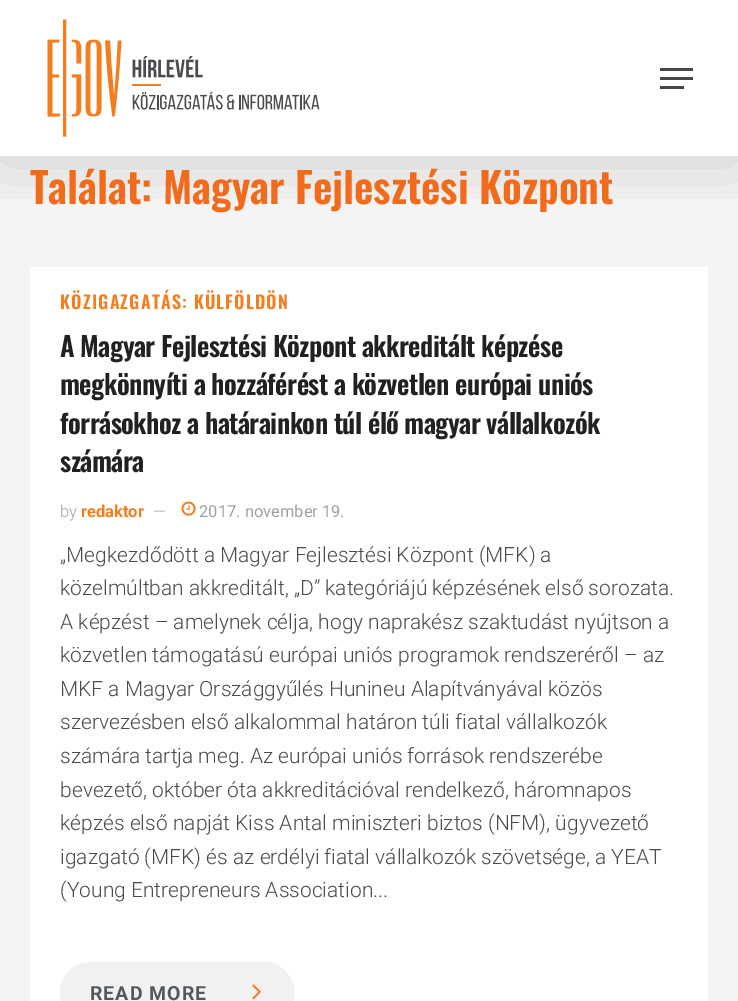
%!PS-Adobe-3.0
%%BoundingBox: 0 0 738 1001
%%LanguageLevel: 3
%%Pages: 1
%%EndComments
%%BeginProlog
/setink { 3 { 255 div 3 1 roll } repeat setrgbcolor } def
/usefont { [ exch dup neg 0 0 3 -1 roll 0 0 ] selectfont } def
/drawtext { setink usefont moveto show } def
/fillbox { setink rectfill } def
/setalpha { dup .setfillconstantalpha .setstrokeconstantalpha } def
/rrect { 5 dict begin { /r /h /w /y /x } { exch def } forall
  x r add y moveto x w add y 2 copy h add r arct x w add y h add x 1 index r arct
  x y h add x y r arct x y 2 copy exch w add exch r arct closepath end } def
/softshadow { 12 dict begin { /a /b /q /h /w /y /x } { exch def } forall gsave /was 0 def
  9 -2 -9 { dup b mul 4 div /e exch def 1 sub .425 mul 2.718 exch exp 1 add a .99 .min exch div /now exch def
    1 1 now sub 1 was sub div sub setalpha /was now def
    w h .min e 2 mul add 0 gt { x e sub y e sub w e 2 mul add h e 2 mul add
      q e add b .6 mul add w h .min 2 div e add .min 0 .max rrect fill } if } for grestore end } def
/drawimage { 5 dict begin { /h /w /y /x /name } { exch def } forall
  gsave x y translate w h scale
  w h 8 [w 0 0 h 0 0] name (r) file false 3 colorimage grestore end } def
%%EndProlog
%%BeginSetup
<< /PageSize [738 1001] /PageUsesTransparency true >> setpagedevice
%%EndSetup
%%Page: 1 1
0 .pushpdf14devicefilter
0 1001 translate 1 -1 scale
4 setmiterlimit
0 0 738 1001 244 244 244 fillbox
0 0 738 156 255 255 255 fillbox
gsave
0 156 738 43 rectclip
0 0 0 setink
0 5 738 156 0 34 0.15 softshadow
grestore
(assets/img1.rgb) 47 19 273 118 drawimage
660 68 33 3 71 71 71 fillbox
660 86 24 3 71 71 71 fillbox
660 77 33 3 71 71 71 fillbox
(Találat: Magyar Fejlesztési Központ) 30 204 /Oswald-SemiBold 42 242 107 26 drawtext
30 267 678 734 255 255 255 fillbox
/Oswald-SemiBold 18 usefont
244 125 32 setink
60 309 moveto 1.2 0 (KÖZIGAZGATÁS: KÜLFÖLDÖN) ashow
/Oswald-SemiBold 27 usefont
33 33 33 setink
60 357 moveto -0.55 0 (A Magyar Fejlesztési Központ akkreditált képzése) ashow
60 395 moveto -0.55 0 (megkönnyíti a hozzáférést a közvetlen európai uniós) ashow
60 434 moveto -0.55 0 (forrásokhoz a határainkon túl élő magyar vállalkozók) ashow
60 472 moveto -0.55 0 (számára) ashow
(by) 60 517 /Roboto-Light 16.5 160 160 160 drawtext
(redaktor) 81 517 /Roboto-Bold 16.5 244 125 32 drawtext
(—) 153 517 /Roboto-Light 16.5 160 160 160 drawtext
(assets/img2.rgb) 181 501 15 15 drawimage
(2017. november 19.) 199 517 /Roboto-Regular 16.5 160 160 160 drawtext
(„Megkezdődött a Magyar Fejlesztési Központ \(MFK\) a) 60 562 /Roboto-Light 21 73 75 79 drawtext
(közelmúltban akkreditált, „D” kategóriájú képzésének első sorozata.) 60 595 /Roboto-Light 21 73 75 79 drawtext
(A képzést – amelynek célja, hogy naprakész szaktudást nyújtson a) 60 629 /Roboto-Light 21 73 75 79 drawtext
(közvetlen támogatású európai uniós programok rendszeréről – az) 60 662 /Roboto-Light 21 73 75 79 drawtext
(MKF a Magyar Országgyűlés Hunineu Alapítványával közös) 60 696 /Roboto-Light 21 73 75 79 drawtext
(szervezésben első alkalommal határon túli fiatal vállalkozók) 60 729 /Roboto-Light 21 73 75 79 drawtext
(számára tartja meg. Az európai uniós források rendszerébe) 60 763 /Roboto-Light 21 73 75 79 drawtext
(bevezető, október óta akkreditációval rendelkező, háromnapos) 60 797 /Roboto-Light 21 73 75 79 drawtext
(képzés első napját Kiss Antal miniszteri biztos \(NFM\), ügyvezető) 60 830 /Roboto-Light 21 73 75 79 drawtext
(igazgató \(MFK\) és az erdélyi fiatal vállalkozók szövetsége, a YEAT) 60 864 /Roboto-Light 21 73 75 79 drawtext
(\(Young Entrepreneurs Association...) 60 897 /Roboto-Light 21 73 75 79 drawtext
241 241 241 setink
60 962 234 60 30 rrect fill
/Roboto-Bold 19.5 usefont
83 88 92 setink
90 1000 moveto 1 0 (READ MORE) ashow
(assets/img3.rgb) 252 984 9 16 drawimage
.poppdf14devicefilter showpage
%%EOF
